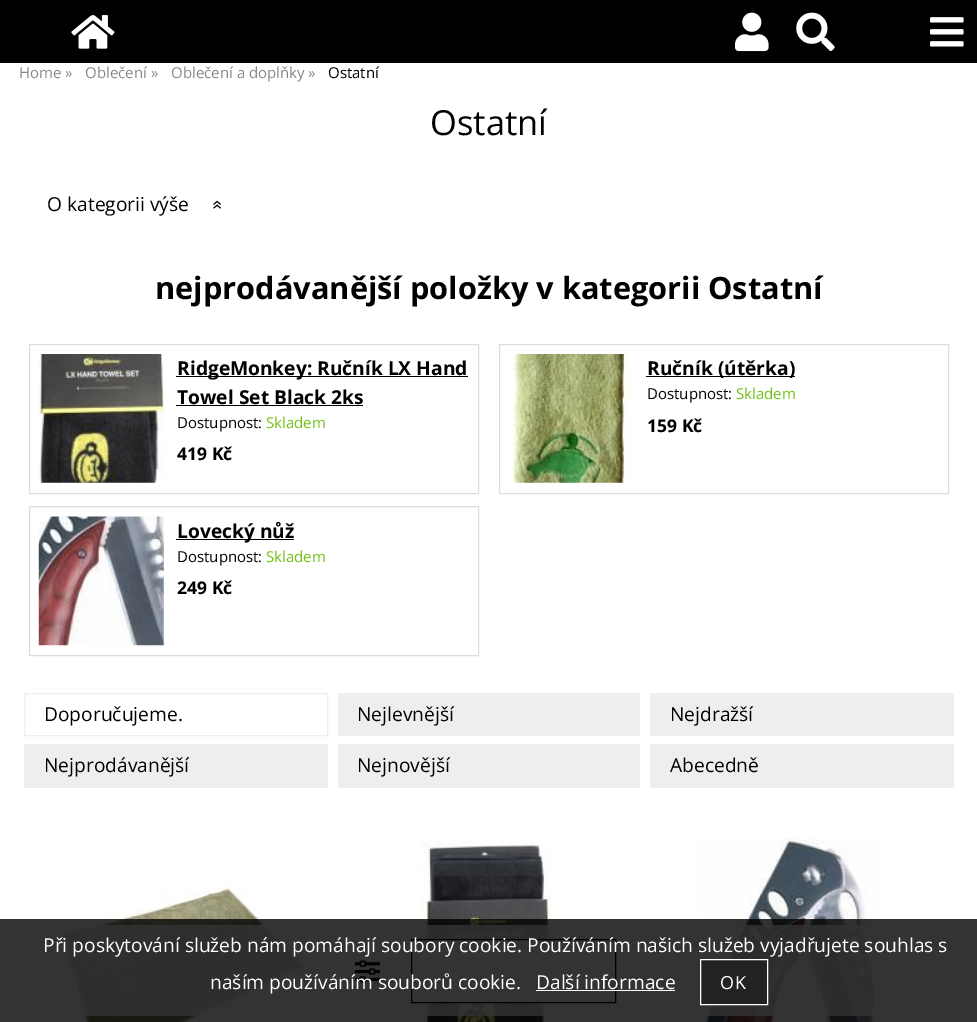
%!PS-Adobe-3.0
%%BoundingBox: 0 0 977 1022
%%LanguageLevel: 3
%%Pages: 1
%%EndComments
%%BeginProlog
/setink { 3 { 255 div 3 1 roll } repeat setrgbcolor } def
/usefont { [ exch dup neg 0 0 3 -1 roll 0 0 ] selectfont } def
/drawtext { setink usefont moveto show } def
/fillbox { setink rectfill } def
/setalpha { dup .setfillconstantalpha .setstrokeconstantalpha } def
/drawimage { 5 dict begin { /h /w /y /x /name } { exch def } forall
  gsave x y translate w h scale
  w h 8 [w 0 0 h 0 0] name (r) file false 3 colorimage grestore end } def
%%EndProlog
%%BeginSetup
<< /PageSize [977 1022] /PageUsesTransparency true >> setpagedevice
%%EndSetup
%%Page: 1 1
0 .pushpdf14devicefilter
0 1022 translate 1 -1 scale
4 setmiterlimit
0 0 977 1022 255 255 255 fillbox
0 0 977 63 0 0 0 fillbox
(assets/img1.rgb) 71 15 44 34 drawimage
(assets/img2.rgb) 735 12 34 40 drawimage
(assets/img3.rgb) 796 12 39 39 drawimage
(assets/img4.rgb) 930 17 34 30 drawimage
(Home ») 19 78 /OpenSans-Regular 15 136 136 136 drawtext
(Oblečení ») 85 78 /OpenSans-Regular 15 136 136 136 drawtext
(Oblečení a doplňky ») 171 78 /OpenSans-Regular 15 136 136 136 drawtext
(Ostatní) 328 78 /OpenSans-Regular 15 0 0 0 drawtext
(Ostatní) 430 135 /OpenSans-Regular 34.5 0 0 0 drawtext
(O kategorii výše) 47 211 /OpenSans-Regular 19.2 0 0 0 drawtext
gsave 212 200 translate 90 rotate 0 0 moveto («) show grestore
(nejprodávanější položky v kategorii Ostatní) 155 299 /OpenSans-Bold 30.75 0 0 0 drawtext
221 221 221 setink
29.5 344.5 449 149 rectstroke
(assets/img5.rgb) 39 354 125 129 drawimage
176 376 292 1 0 0 0 fillbox
(RidgeMonkey: Ručník LX Hand) 177 375 /OpenSans-Bold 19.2 0 0 0 drawtext
(Towel Set Black 2ks) 177 404 /OpenSans-Bold 19.2 0 0 0 drawtext
176 405 187 1 0 0 0 fillbox
(Dostupnost:) 177 428 /OpenSans-Regular 15 0 0 0 drawtext
(Skladem) 266 428 /OpenSans-Regular 15 114 194 21 drawtext
(419 Kč) 177 460 /OpenSans-Bold 17.5 0 0 0 drawtext
221 221 221 setink
499.5 344.5 449 149 rectstroke
(assets/img6.rgb) 509 354 122 129 drawimage
646 376 149 1 0 0 0 fillbox
(Ručník \(útěrka\)) 647 375 /OpenSans-Bold 19.2 0 0 0 drawtext
(Dostupnost:) 647 399 /OpenSans-Regular 15 0 0 0 drawtext
(Skladem) 736 399 /OpenSans-Regular 15 114 194 21 drawtext
(159 Kč) 647 432 /OpenSans-Bold 17.5 0 0 0 drawtext
221 221 221 setink
29.5 506.5 449 149 rectstroke
(assets/img7.rgb) 38 516 126 130 drawimage
176 539 118 1 0 0 0 fillbox
(Lovecký nůž) 177 538 /OpenSans-Bold 19.2 0 0 0 drawtext
(Dostupnost:) 177 562 /OpenSans-Regular 15 0 0 0 drawtext
(Skladem) 266 562 /OpenSans-Regular 15 114 194 21 drawtext
(249 Kč) 177 594 /OpenSans-Bold 17.5 0 0 0 drawtext
238 238 238 setink
24.5 693.5 303 42 rectstroke
(Doporučujeme.) 44 721 /OpenSans-Regular 19.2 0 0 0 drawtext
338 693 302 43 238 238 238 fillbox
(Nejlevnější) 357 721 /OpenSans-Regular 19.2 0 0 0 drawtext
650 693 304 43 238 238 238 fillbox
(Nejdražší) 670 721 /OpenSans-Regular 19.2 0 0 0 drawtext
24 744 304 44 238 238 238 fillbox
(Nejprodávanější) 44 772 /OpenSans-Regular 19.2 0 0 0 drawtext
338 744 302 44 238 238 238 fillbox
(Nejnovější) 357 772 /OpenSans-Regular 19.2 0 0 0 drawtext
650 744 304 44 238 238 238 fillbox
(Abecedně) 670 772 /OpenSans-Regular 19.2 0 0 0 drawtext
(assets/img8.rgb) 61 886 248 136 drawimage
(assets/img9.rgb) 416 840 137 182 drawimage
(assets/img10.rgb) 699 839 183 183 drawimage
0.8 setalpha
61 925 820 91 255 255 255 fillbox
1 setalpha
(assets/img11.rgb) 355 960 25 23 drawimage
425 940 127 62 255 255 255 fillbox
0 0 0 setink
411.5 939.5 204 63 rectstroke
0.8 setalpha
0 919 977 103 0 0 0 fillbox
1 setalpha
(Při poskytování služeb nám pomáhají soubory cookie. Používáním našich služeb vyjadřujete souhlas s) 43 952 /OpenSans-Regular 19.2 255 255 255 drawtext
(naším používáním souborů cookie.) 210 989 /OpenSans-Regular 19.2 255 255 255 drawtext
(Další informace) 536 989 /OpenSans-Regular 19.2 255 255 255 drawtext
536 990 139 1 255 255 255 fillbox
34 34 34 setink
700.5 959.5 moveto 767.5 959.5 lineto 767.5 1004.5 lineto 700.5 1004.5 lineto closepath gsave fill grestore
255 255 255 setink
stroke
/OpenSans-Regular 18 usefont
720 989 moveto 1 0 (OK) ashow
.poppdf14devicefilter showpage
%%EOF
